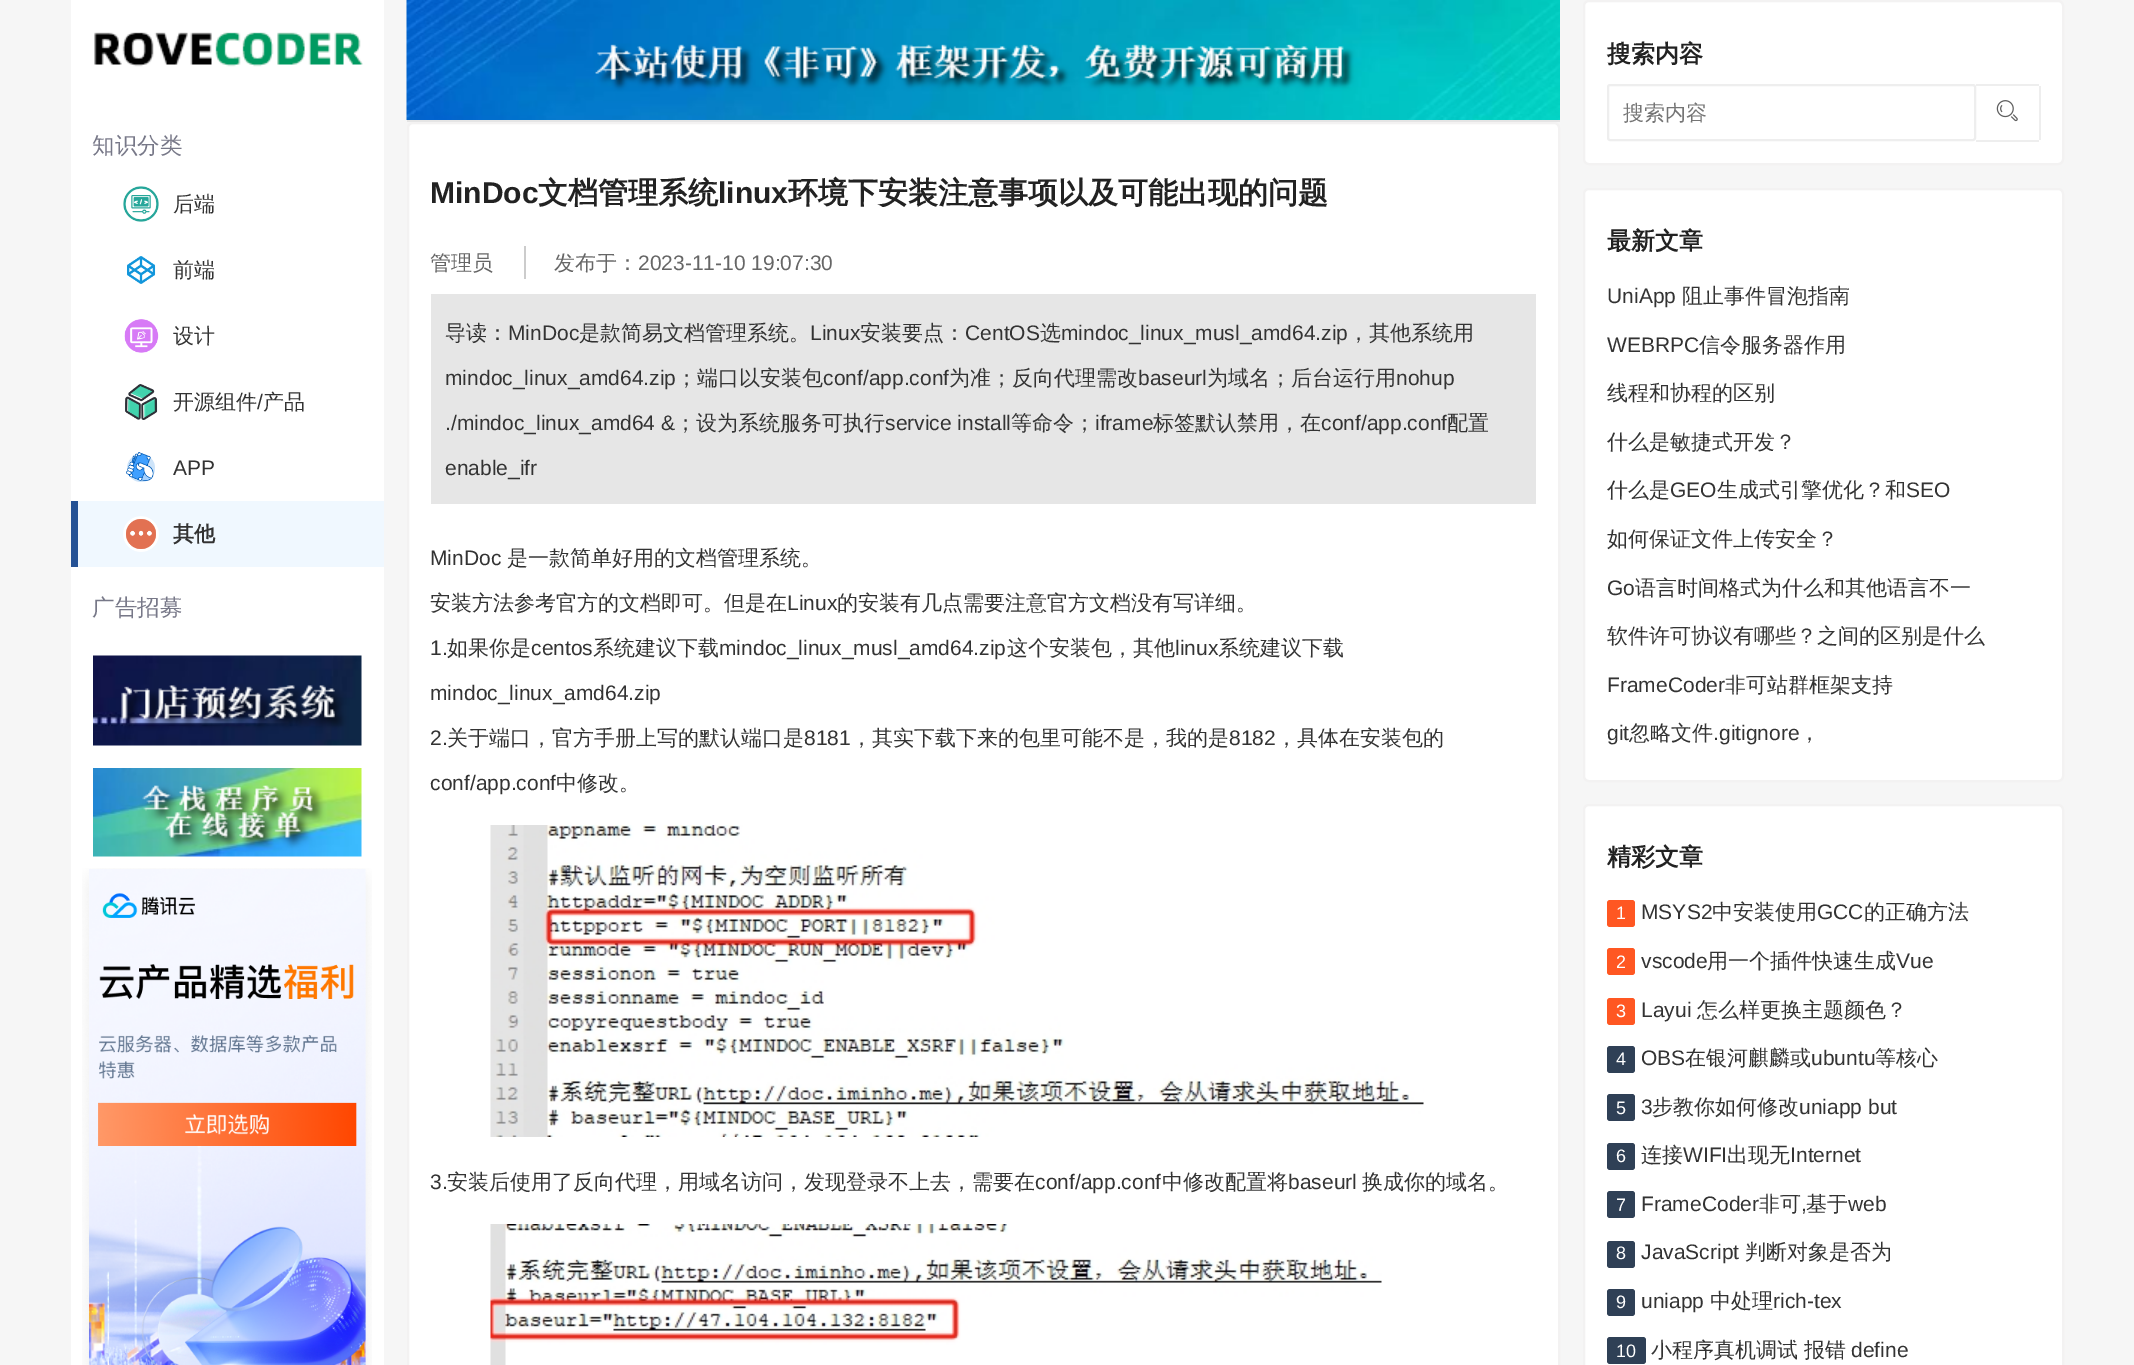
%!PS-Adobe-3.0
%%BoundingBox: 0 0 2134 1365
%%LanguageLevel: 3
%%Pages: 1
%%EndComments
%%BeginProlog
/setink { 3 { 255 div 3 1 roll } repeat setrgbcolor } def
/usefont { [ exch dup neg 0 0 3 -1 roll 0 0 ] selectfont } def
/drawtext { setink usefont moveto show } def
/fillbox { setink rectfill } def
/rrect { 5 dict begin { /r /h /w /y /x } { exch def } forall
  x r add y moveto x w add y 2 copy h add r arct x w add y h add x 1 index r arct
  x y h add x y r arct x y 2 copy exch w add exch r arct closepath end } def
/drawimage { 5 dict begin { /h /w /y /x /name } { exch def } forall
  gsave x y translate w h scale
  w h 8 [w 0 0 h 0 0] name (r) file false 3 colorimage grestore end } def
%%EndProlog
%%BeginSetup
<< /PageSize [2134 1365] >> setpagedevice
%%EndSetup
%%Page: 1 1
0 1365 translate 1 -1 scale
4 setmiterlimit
0 0 2134 1365 246 246 246 fillbox
71 0 313 1365 255 255 255 fillbox
(assets/img1.rgb) 94 32 269 35 drawimage
(知识分类) 92 153 /WenQuanYiZenHei-Medium 22.5 119 120 136 drawtext
(assets/img2.rgb) 123 186 36 36 drawimage
(后端) 173 211 /WenQuanYiZenHei-Medium 21 51 51 51 drawtext
(assets/img3.rgb) 127 256 29 28 drawimage
(前端) 173 277 /WenQuanYiZenHei-Medium 21 51 51 51 drawtext
(assets/img4.rgb) 124 319 35 34 drawimage
(设计) 173 343 /WenQuanYiZenHei-Medium 21 51 51 51 drawtext
(assets/img5.rgb) 125 384 33 36 drawimage
(开源组件) 173 409 /WenQuanYiZenHei-Medium 21 51 51 51 drawtext
(/) 257 409 /LiberationSans-Regular 21 51 51 51 drawtext
(产品) 263 409 /WenQuanYiZenHei-Medium 21 51 51 51 drawtext
(assets/img6.rgb) 126 452 29 30 drawimage
(APP) 173 475 /LiberationSans-Regular 21 51 51 51 drawtext
78 501 306 66 240 248 255 fillbox
71 501 7 66 37 82 149 fillbox
(assets/img7.rgb) 123 516 36 36 drawimage
(其他) 173 541 /WenQuanYiZenHei-Bold 21 51 51 51 drawtext
(广告招募) 92 615 /WenQuanYiZenHei-Medium 22.5 119 120 136 drawtext
(assets/img8.rgb) 93 655 269 91 drawimage
(assets/img9.rgb) 93 768 269 89 drawimage
(assets/img10.rgb) 82 868 290 497 drawimage
407 120 1153 2 229 229 229 fillbox
(assets/img11.rgb) 406 0 1154 120 drawimage
255 255 255 setink
408 123 1151 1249 5 rrect gsave fill grestore
243 242 242 setink
2 setlinewidth
stroke
(MinDoc) 430 203 /LiberationSans-Bold 30 34 34 34 drawtext
(文档管理系统) 538 203 /WenQuanYiZenHei-Bold 30 34 34 34 drawtext
(linux) 718 203 /LiberationSans-Bold 30 34 34 34 drawtext
(环境下安装注意事项以及可能出现的问题) 788 203 /WenQuanYiZenHei-Bold 30 34 34 34 drawtext
(管理员) 430 270 /WenQuanYiZenHei-Medium 21 102 102 102 drawtext
524 246 2 33 204 204 204 fillbox
(发布于：) 554 270 /WenQuanYiZenHei-Medium 21 102 102 102 drawtext
(2023-11-10 19:07:30) 638 270 /LiberationSans-Regular 21 102 102 102 drawtext
431 294 1105 210 230 230 230 fillbox
(导读：) 445 340 /WenQuanYiZenHei-Medium 21 51 51 51 drawtext
(MinDoc) 508 340 /LiberationSans-Regular 21 51 51 51 drawtext
(是款简易文档管理系统。) 579 340 /WenQuanYiZenHei-Medium 21 51 51 51 drawtext
(Linux) 810 340 /LiberationSans-Regular 21 51 51 51 drawtext
(安装要点：) 860 340 /WenQuanYiZenHei-Medium 21 51 51 51 drawtext
(CentOS) 965 340 /LiberationSans-Regular 21 51 51 51 drawtext
(选) 1040 340 /WenQuanYiZenHei-Medium 21 51 51 51 drawtext
(mindoc_linux_musl_amd64.zip) 1061 340 /LiberationSans-Regular 21 51 51 51 drawtext
(，其他系统用) 1348 340 /WenQuanYiZenHei-Medium 21 51 51 51 drawtext
(mindoc_linux_amd64.zip) 445 385 /LiberationSans-Regular 21 51 51 51 drawtext
(；端口以安装包) 676 385 /WenQuanYiZenHei-Medium 21 51 51 51 drawtext
(conf/app.conf) 823 385 /LiberationSans-Regular 21 51 51 51 drawtext
(为准；反向代理需改) 949 385 /WenQuanYiZenHei-Medium 21 51 51 51 drawtext
(baseurl) 1138 385 /LiberationSans-Regular 21 51 51 51 drawtext
(为域名；后台运行用) 1207 385 /WenQuanYiZenHei-Medium 21 51 51 51 drawtext
(nohup) 1396 385 /LiberationSans-Regular 21 51 51 51 drawtext
(./mindoc_linux_amd64 &) 445 430 /LiberationSans-Regular 21 51 51 51 drawtext
(；设为系统服务可执行) 675 430 /WenQuanYiZenHei-Medium 21 51 51 51 drawtext
(service install) 885 430 /LiberationSans-Regular 21 51 51 51 drawtext
(等命令；) 1011 430 /WenQuanYiZenHei-Medium 21 51 51 51 drawtext
(iframe) 1095 430 /LiberationSans-Regular 21 51 51 51 drawtext
(标签默认禁用，在) 1153 430 /WenQuanYiZenHei-Medium 21 51 51 51 drawtext
(conf/app.conf) 1321 430 /LiberationSans-Regular 21 51 51 51 drawtext
(配置) 1447 430 /WenQuanYiZenHei-Medium 21 51 51 51 drawtext
(enable_ifr) 445 475 /LiberationSans-Regular 21 51 51 51 drawtext
(MinDoc) 430 565 /LiberationSans-Regular 21 51 51 51 drawtext
(是一款简单好用的文档管理系统。) 507 565 /WenQuanYiZenHei-Medium 21 51 51 51 drawtext
(安装方法参考官方的文档即可。但是在) 430 610 /WenQuanYiZenHei-Medium 21 51 51 51 drawtext
(Linux) 787 610 /LiberationSans-Regular 21 51 51 51 drawtext
(的安装有几点需要注意官方文档没有写详细。) 837 610 /WenQuanYiZenHei-Medium 21 51 51 51 drawtext
(1.) 430 655 /LiberationSans-Regular 21 51 51 51 drawtext
(如果你是) 447 655 /WenQuanYiZenHei-Medium 21 51 51 51 drawtext
(centos) 531 655 /LiberationSans-Regular 21 51 51 51 drawtext
(系统建议下载) 593 655 /WenQuanYiZenHei-Medium 21 51 51 51 drawtext
(mindoc_linux_musl_amd64.zip) 719 655 /LiberationSans-Regular 21 51 51 51 drawtext
(这个安装包，其他) 1007 655 /WenQuanYiZenHei-Medium 21 51 51 51 drawtext
(linux) 1175 655 /LiberationSans-Regular 21 51 51 51 drawtext
(系统建议下载) 1218 655 /WenQuanYiZenHei-Medium 21 51 51 51 drawtext
(mindoc_linux_amd64.zip) 430 700 /LiberationSans-Regular 21 51 51 51 drawtext
(2.) 430 745 /LiberationSans-Regular 21 51 51 51 drawtext
(关于端口，官方手册上写的默认端口是) 447 745 /WenQuanYiZenHei-Medium 21 51 51 51 drawtext
(8181) 804 745 /LiberationSans-Regular 21 51 51 51 drawtext
(，其实下载下来的包里可能不是，我的是) 851 745 /WenQuanYiZenHei-Medium 21 51 51 51 drawtext
(8182) 1229 745 /LiberationSans-Regular 21 51 51 51 drawtext
(，具体在安装包的) 1276 745 /WenQuanYiZenHei-Medium 21 51 51 51 drawtext
(conf/app.conf) 430 790 /LiberationSans-Regular 21 51 51 51 drawtext
(中修改。) 556 790 /WenQuanYiZenHei-Medium 21 51 51 51 drawtext
(assets/img12.rgb) 490 825 934 312 drawimage
(3.) 430 1189 /LiberationSans-Regular 21 51 51 51 drawtext
(安装后使用了反向代理，用域名访问，发现登录不上去，需要在) 447 1189 /WenQuanYiZenHei-Medium 21 51 51 51 drawtext
(conf/app.conf) 1035 1189 /LiberationSans-Regular 21 51 51 51 drawtext
(中修改配置将) 1162 1189 /WenQuanYiZenHei-Medium 21 51 51 51 drawtext
(baseurl) 1288 1189 /LiberationSans-Regular 21 51 51 51 drawtext
(换成你的域名。) 1362 1189 /WenQuanYiZenHei-Medium 21 51 51 51 drawtext
(assets/img13.rgb) 490 1224 892 141 drawimage
255 255 255 setink
1584 1 479 163 5 rrect gsave fill grestore
243 242 242 setink
stroke
(搜索内容) 1607 62 /WenQuanYiZenHei-Bold 24 34 34 34 drawtext
238 238 238 setink
1608 85 367 55 2 rrect stroke
(搜索内容) 1623 120 /WenQuanYiZenHei-Medium 21 117 117 117 drawtext
1976 84 63 2 238 238 238 fillbox
2039 86 2 54 238 238 238 fillbox
1976 140 63 2 238 238 238 fillbox
(assets/img14.rgb) 1996 100 22 22 drawimage
255 255 255 setink
1584 189 479 592 5 rrect gsave fill grestore
243 242 242 setink
stroke
(最新文章) 1607 249 /WenQuanYiZenHei-Bold 24 34 34 34 drawtext
(UniApp) 1607 303 /LiberationSans-Regular 21 51 51 51 drawtext
(阻止事件冒泡指南) 1682 303 /WenQuanYiZenHei-Medium 21 51 51 51 drawtext
(WEBRPC) 1607 352 /LiberationSans-Regular 21 51 51 51 drawtext
(信令服务器作用) 1699 352 /WenQuanYiZenHei-Medium 21 51 51 51 drawtext
(线程和协程的区别) 1607 400 /WenQuanYiZenHei-Medium 21 51 51 51 drawtext
(什么是敏捷式开发？) 1607 449 /WenQuanYiZenHei-Medium 21 51 51 51 drawtext
(什么是) 1607 497 /WenQuanYiZenHei-Medium 21 51 51 51 drawtext
(GEO) 1670 497 /LiberationSans-Regular 21 51 51 51 drawtext
(生成式引擎优化？和) 1717 497 /WenQuanYiZenHei-Medium 21 51 51 51 drawtext
(SEO) 1906 497 /LiberationSans-Regular 21 51 51 51 drawtext
(如何保证文件上传安全？) 1607 546 /WenQuanYiZenHei-Medium 21 51 51 51 drawtext
(Go) 1607 595 /LiberationSans-Regular 21 51 51 51 drawtext
(语言时间格式为什么和其他语言不一) 1635 595 /WenQuanYiZenHei-Medium 21 51 51 51 drawtext
(软件许可协议有哪些？之间的区别是什么) 1607 643 /WenQuanYiZenHei-Medium 21 51 51 51 drawtext
(FrameCoder) 1607 692 /LiberationSans-Regular 21 51 51 51 drawtext
(非可站群框架支持) 1725 692 /WenQuanYiZenHei-Medium 21 51 51 51 drawtext
(git) 1607 740 /LiberationSans-Regular 21 51 51 51 drawtext
(忽略文件) 1629 740 /WenQuanYiZenHei-Medium 21 51 51 51 drawtext
(.gitignore) 1713 740 /LiberationSans-Regular 21 51 51 51 drawtext
(，) 1799 740 /WenQuanYiZenHei-Medium 21 51 51 51 drawtext
255 255 255 setink
1584 805 479 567 5 rrect gsave fill grestore
243 242 242 setink
stroke
(精彩文章) 1607 865 /WenQuanYiZenHei-Bold 24 34 34 34 drawtext
255 87 34 setink
1607 900 28 27 3 rrect fill
(1) 1616 919 /LiberationSans-Regular 18 255 255 255 drawtext
(MSYS2) 1641 919 /LiberationSans-Regular 21 51 51 51 drawtext
(中安装使用) 1712 919 /WenQuanYiZenHei-Medium 21 51 51 51 drawtext
(GCC) 1817 919 /LiberationSans-Regular 21 51 51 51 drawtext
(的正确方法) 1864 919 /WenQuanYiZenHei-Medium 21 51 51 51 drawtext
255 87 34 setink
1607 948 28 27 3 rrect fill
(2) 1616 968 /LiberationSans-Regular 18 255 255 255 drawtext
(vscode) 1641 968 /LiberationSans-Regular 21 51 51 51 drawtext
(用一个插件快速生成) 1707 968 /WenQuanYiZenHei-Medium 21 51 51 51 drawtext
(Vue) 1896 968 /LiberationSans-Regular 21 51 51 51 drawtext
255 87 34 setink
1607 998 28 27 3 rrect fill
(3) 1616 1017 /LiberationSans-Regular 18 255 255 255 drawtext
(Layui) 1641 1017 /LiberationSans-Regular 21 51 51 51 drawtext
(怎么样更换主题颜色？) 1697 1017 /WenQuanYiZenHei-Medium 21 51 51 51 drawtext
47 64 86 setink
1607 1046 28 27 3 rrect fill
(4) 1616 1065 /LiberationSans-Regular 18 255 255 255 drawtext
(OBS) 1641 1065 /LiberationSans-Regular 21 51 51 51 drawtext
(在银河麒麟或) 1685 1065 /WenQuanYiZenHei-Medium 21 51 51 51 drawtext
(ubuntu) 1811 1065 /LiberationSans-Regular 21 51 51 51 drawtext
(等核心) 1875 1065 /WenQuanYiZenHei-Medium 21 51 51 51 drawtext
47 64 86 setink
1607 1094 28 27 3 rrect fill
(5) 1616 1114 /LiberationSans-Regular 18 255 255 255 drawtext
(3) 1641 1114 /LiberationSans-Regular 21 51 51 51 drawtext
(步教你如何修改) 1652 1114 /WenQuanYiZenHei-Medium 21 51 51 51 drawtext
(uniapp but) 1799 1114 /LiberationSans-Regular 21 51 51 51 drawtext
47 64 86 setink
1607 1143 28 27 3 rrect fill
(6) 1616 1162 /LiberationSans-Regular 18 255 255 255 drawtext
(连接) 1641 1162 /WenQuanYiZenHei-Medium 21 51 51 51 drawtext
(WIFI) 1683 1162 /LiberationSans-Regular 21 51 51 51 drawtext
(出现无) 1727 1162 /WenQuanYiZenHei-Medium 21 51 51 51 drawtext
(Internet) 1790 1162 /LiberationSans-Regular 21 51 51 51 drawtext
47 64 86 setink
1607 1191 28 27 3 rrect fill
(7) 1616 1211 /LiberationSans-Regular 18 255 255 255 drawtext
(FrameCoder) 1641 1211 /LiberationSans-Regular 21 51 51 51 drawtext
(非可) 1759 1211 /WenQuanYiZenHei-Medium 21 51 51 51 drawtext
(,) 1801 1211 /LiberationSans-Regular 21 51 51 51 drawtext
(基于) 1806 1211 /WenQuanYiZenHei-Medium 21 51 51 51 drawtext
(web) 1848 1211 /LiberationSans-Regular 21 51 51 51 drawtext
47 64 86 setink
1607 1241 28 27 3 rrect fill
(8) 1616 1259 /LiberationSans-Regular 18 255 255 255 drawtext
(JavaScript) 1641 1259 /LiberationSans-Regular 21 51 51 51 drawtext
(判断对象是否为) 1745 1259 /WenQuanYiZenHei-Medium 21 51 51 51 drawtext
47 64 86 setink
1607 1289 28 27 3 rrect fill
(9) 1616 1308 /LiberationSans-Regular 18 255 255 255 drawtext
(uniapp) 1641 1308 /LiberationSans-Regular 21 51 51 51 drawtext
(中处理) 1710 1308 /WenQuanYiZenHei-Medium 21 51 51 51 drawtext
(rich-tex) 1773 1308 /LiberationSans-Regular 21 51 51 51 drawtext
47 64 86 setink
1607 1337 39 27 3 rrect fill
(10) 1616 1357 /LiberationSans-Regular 18 255 255 255 drawtext
(小程序真机调试 报错) 1651 1357 /WenQuanYiZenHei-Medium 21 51 51 51 drawtext
(define) 1851 1357 /LiberationSans-Regular 21 51 51 51 drawtext
showpage
%%EOF
